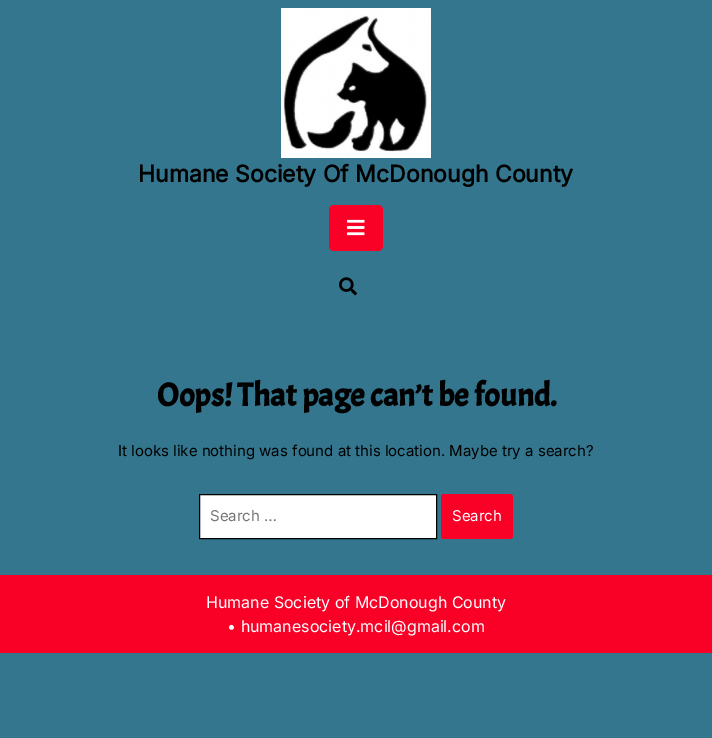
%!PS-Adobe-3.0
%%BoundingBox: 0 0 712 738
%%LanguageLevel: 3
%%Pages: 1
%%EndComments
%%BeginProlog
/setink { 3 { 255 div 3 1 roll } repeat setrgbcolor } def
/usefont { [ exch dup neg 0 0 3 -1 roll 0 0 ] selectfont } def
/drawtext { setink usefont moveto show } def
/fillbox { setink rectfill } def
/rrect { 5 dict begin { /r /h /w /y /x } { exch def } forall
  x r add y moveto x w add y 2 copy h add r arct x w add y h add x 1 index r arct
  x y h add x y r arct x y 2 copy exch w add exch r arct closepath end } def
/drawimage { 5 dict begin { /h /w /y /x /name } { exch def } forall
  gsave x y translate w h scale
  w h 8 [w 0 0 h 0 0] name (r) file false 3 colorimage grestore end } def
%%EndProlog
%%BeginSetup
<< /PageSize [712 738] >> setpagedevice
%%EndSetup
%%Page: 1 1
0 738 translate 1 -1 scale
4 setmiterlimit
0 0 712 738 51 118 142 fillbox
(assets/img1.rgb) 281 8 150 150 drawimage
(Humane Society Of McDonough County) 138 182 /Inter-Bold 23 0 0 0 drawtext
249 0 38 setink
329 205 54 46 5 rrect fill
(assets/img2.rgb) 347 219 18 17 drawimage
(assets/img3.rgb) 339 277 18 19 drawimage
(Oops! That page can’t be found.) 157 406 /Acme-Bold 32.75 0 0 0 drawtext
(It looks like nothing was found at this location. Maybe try a search?) 118 456 /Inter-Regular 15 0 0 0 drawtext
255 255 255 setink
199.5 494.5 moveto 436.5 494.5 lineto 436.5 538.5 lineto 199.5 538.5 lineto closepath gsave fill grestore
0 0 0 setink
stroke
(Search …) 210 521 /Inter-Regular 15 117 117 117 drawtext
249 0 38 setink
441 494 72 45 3 rrect fill
(Search) 452 521 /Inter-Regular 15 255 255 255 drawtext
0 575 712 78 249 0 38 fillbox
(Humane Society of McDonough County) 206 608 /Inter-Regular 16 255 255 255 drawtext
(• humanesociety.mcil@gmail.com) 227 632 /Inter-Regular 16 255 255 255 drawtext
showpage
%%EOF
